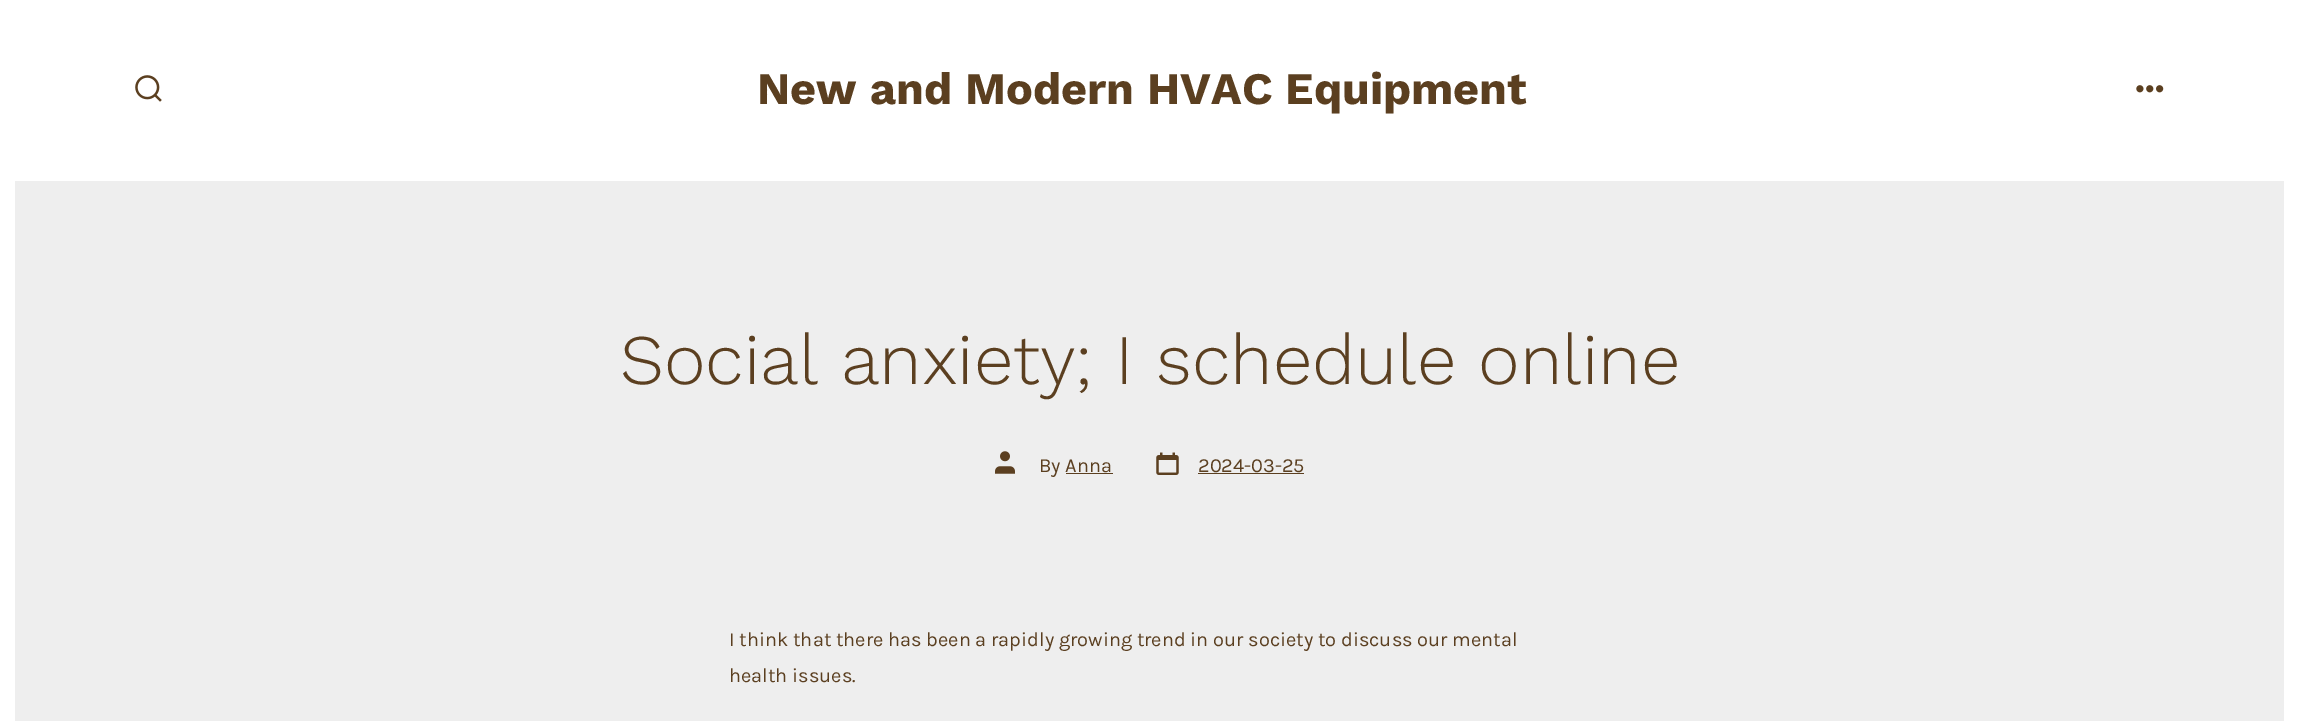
%!PS-Adobe-3.0
%%BoundingBox: 0 0 2298 721
%%LanguageLevel: 3
%%Pages: 1
%%EndComments
%%BeginProlog
/setink { 3 { 255 div 3 1 roll } repeat setrgbcolor } def
/usefont { [ exch dup neg 0 0 3 -1 roll 0 0 ] selectfont } def
/drawtext { setink usefont moveto show } def
/fillbox { setink rectfill } def
/drawimage { 5 dict begin { /h /w /y /x /name } { exch def } forall
  gsave x y translate w h scale
  w h 8 [w 0 0 h 0 0] name (r) file false 3 colorimage grestore end } def
%%EndProlog
%%BeginSetup
<< /PageSize [2298 721] >> setpagedevice
%%EndSetup
%%Page: 1 1
0 721 translate 1 -1 scale
4 setmiterlimit
0 0 2298 721 238 238 238 fillbox
2284 0 14 721 255 255 255 fillbox
0 0 15 721 255 255 255 fillbox
15 0 2269 181 255 255 255 fillbox
(assets/img1.rgb) 135 75 27 27 drawimage
(New and Modern HVAC Equipment) 757 104 /WorkSans-Bold 45 91 63 32 drawtext
(assets/img2.rgb) 2136 85 28 8 drawimage
(Social anxiety; I schedule online) 620 384 /WorkSans-Light 71 91 63 32 drawtext
(assets/img3.rgb) 995 451 20 23 drawimage
(By Anna) 1039 472 /Karla-Regular 20 91 63 32 drawtext
1066 473 47 1 91 63 32 fillbox
(assets/img4.rgb) 1156 452 23 23 drawimage
(2024-03-25) 1198 472 /Karla-Regular 20 91 63 32 drawtext
1198 473 106 1 91 63 32 fillbox
(I think that there has been a rapidly growing trend in our society to discuss our mental) 729 646 /Karla-Regular 20 91 63 32 drawtext
(health issues.) 729 682 /Karla-Regular 20 91 63 32 drawtext
showpage
%%EOF
